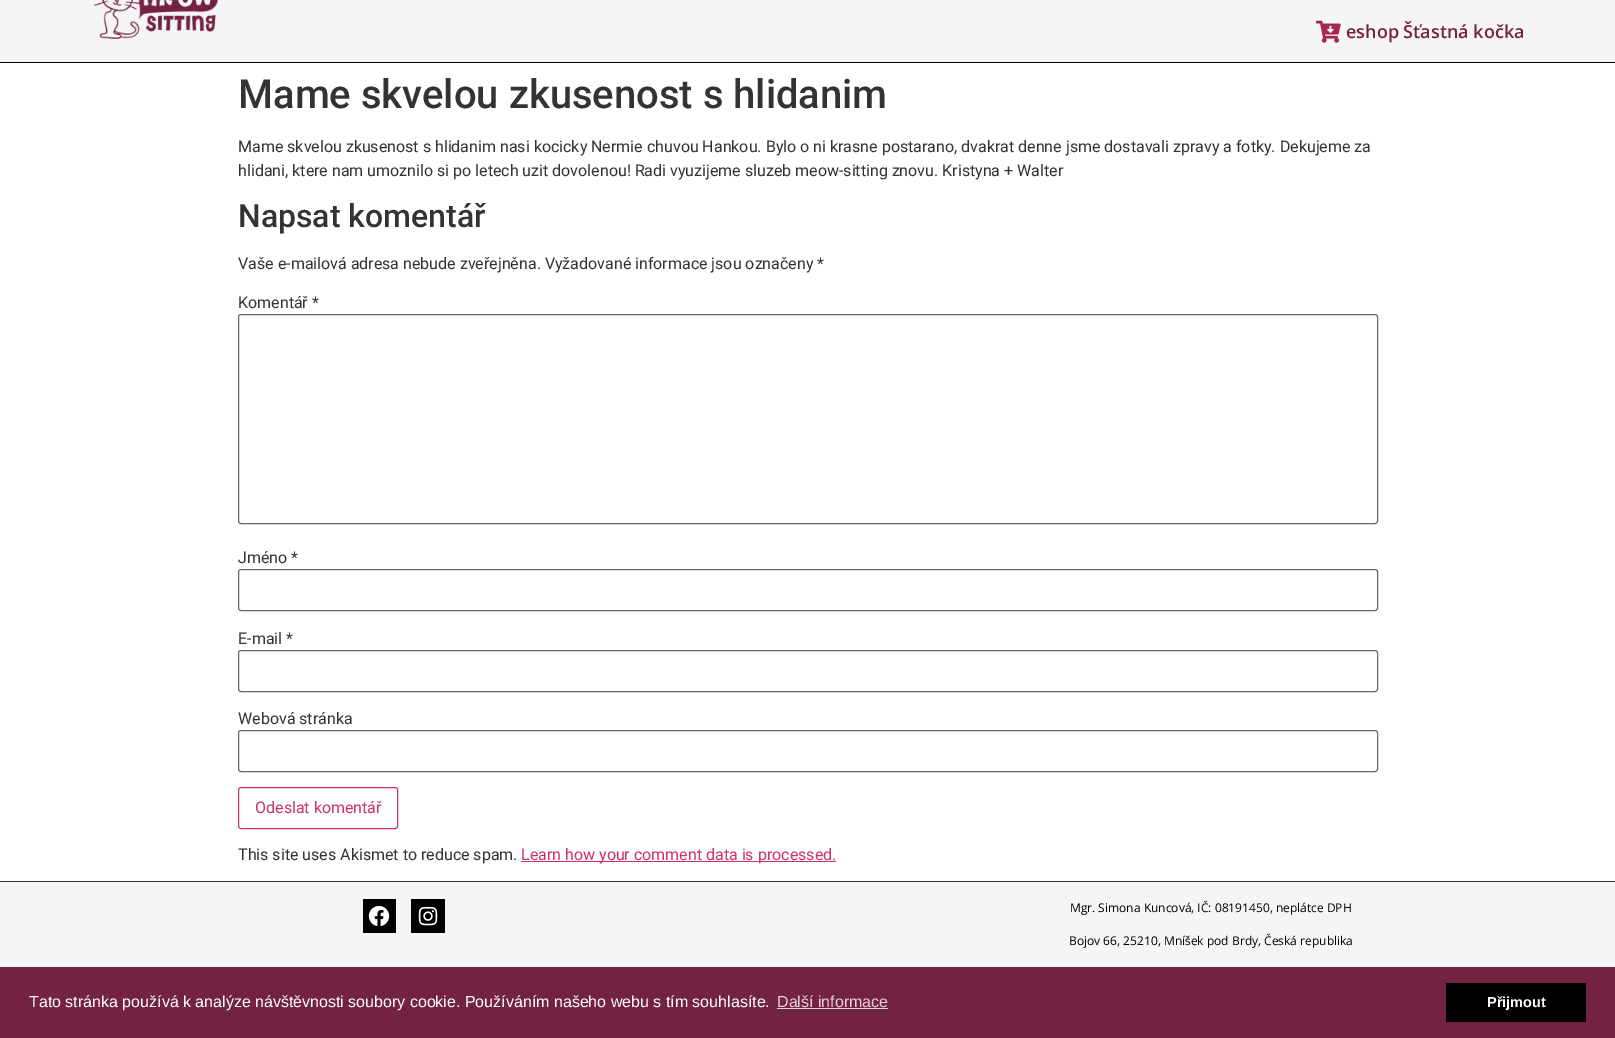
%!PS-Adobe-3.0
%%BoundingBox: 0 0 1615 1038
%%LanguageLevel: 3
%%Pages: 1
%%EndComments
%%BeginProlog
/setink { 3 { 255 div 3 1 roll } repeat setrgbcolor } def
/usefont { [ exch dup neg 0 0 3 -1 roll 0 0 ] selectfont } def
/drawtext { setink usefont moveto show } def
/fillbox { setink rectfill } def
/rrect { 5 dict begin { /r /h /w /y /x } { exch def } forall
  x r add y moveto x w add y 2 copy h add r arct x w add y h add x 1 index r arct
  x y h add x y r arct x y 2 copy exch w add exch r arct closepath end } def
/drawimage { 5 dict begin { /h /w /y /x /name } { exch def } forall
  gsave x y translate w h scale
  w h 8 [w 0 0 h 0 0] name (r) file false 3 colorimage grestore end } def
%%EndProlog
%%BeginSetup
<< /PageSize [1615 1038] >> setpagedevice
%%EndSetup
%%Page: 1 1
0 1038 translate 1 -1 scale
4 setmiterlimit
0 0 1615 1038 255 255 255 fillbox
0 0 1615 62 244 245 244 fillbox
0 62 1615 1 0 0 0 fillbox
(assets/img1.rgb) 94 0 124 39 drawimage
(assets/img2.rgb) 1316 20 25 23 drawimage
(eshop Šťastná kočka) 1346 38 /OpenSans-SemiBold 18 115 34 67 drawtext
(Mame skvelou zkusenost s hlidanim) 238 108 /Roboto-Medium 40 51 51 51 drawtext
(Mame skvelou zkusenost s hlidanim nasi kocicky Nermie chuvou Hankou. Bylo o ni krasne postarano, dvakrat denne jsme dostavali zpravy a fotky. Dekujeme za) 238 152 /Roboto-Regular 16 51 51 51 drawtext
(hlidani, ktere nam umoznilo si po letech uzit dovolenou! Radi vyuzijeme sluzeb meow-sitting znovu. Kristyna + Walter) 238 176 /Roboto-Regular 16 51 51 51 drawtext
(Napsat komentář) 238 227 /Roboto-Medium 32 51 51 51 drawtext
(Vaše e-mailová adresa nebude zveřejněna. Vyžadované informace jsou označeny *) 238 269 /Roboto-Regular 16 51 51 51 drawtext
(Komentář *) 238 308 /Roboto-Regular 16 51 51 51 drawtext
102 102 102 setink
238.5 314.5 1139 209 2.5 rrect stroke
(Jméno *) 238 563 /Roboto-Regular 16 51 51 51 drawtext
102 102 102 setink
238.5 569.5 1139 41 2.5 rrect stroke
(E-mail *) 238 644 /Roboto-Regular 16 51 51 51 drawtext
102 102 102 setink
238.5 650.5 1139 41 2.5 rrect stroke
(Webová stránka) 238 724 /Roboto-Regular 16 51 51 51 drawtext
102 102 102 setink
238.5 730.5 1139 41 2.5 rrect stroke
204 51 102 setink
238.5 787.5 159 41 2.5 rrect stroke
(Odeslat komentář) 255 813 /Roboto-Regular 16 204 51 102 drawtext
(This site uses Akismet to reduce spam.) 238 860 /Roboto-Regular 16 51 51 51 drawtext
521 861 315 1 204 51 102 fillbox
(Learn how your comment data is processed.) 521 860 /Roboto-Regular 16 204 51 102 drawtext
0 882 1615 85 244 245 244 fillbox
0 881 1615 1 51 51 51 fillbox
363 899 33 34 0 0 0 fillbox
(assets/img3.rgb) 368 906 22 21 drawimage
411 899 34 34 0 0 0 fillbox
(assets/img4.rgb) 418 906 20 20 drawimage
(Mgr. Simona Kuncová, IČ: 08191450, neplátce DPH) 1070 912 /OpenSans-Regular 12 0 0 0 drawtext
(Bojov 66, 25210, Mníšek pod Brdy, Česká republika) 1069 945 /OpenSans-Regular 12 0 0 0 drawtext
0 967 1615 71 115 34 67 fillbox
(Tato stránka používá k analýze návštěvnosti soubory cookie. Používáním našeho webu s tím souhlasíte.) 29 1007 /LiberationSans-Regular 16 255 255 255 drawtext
(Další informace) 777 1007 /LiberationSans-Regular 16 227 211 217 drawtext
777 1008 111 1 227 211 217 fillbox
1446 983 140 39 0 0 0 fillbox
(Přijmout) 1487 1007 /LiberationSans-Bold 14.5 255 255 255 drawtext
showpage
%%EOF
